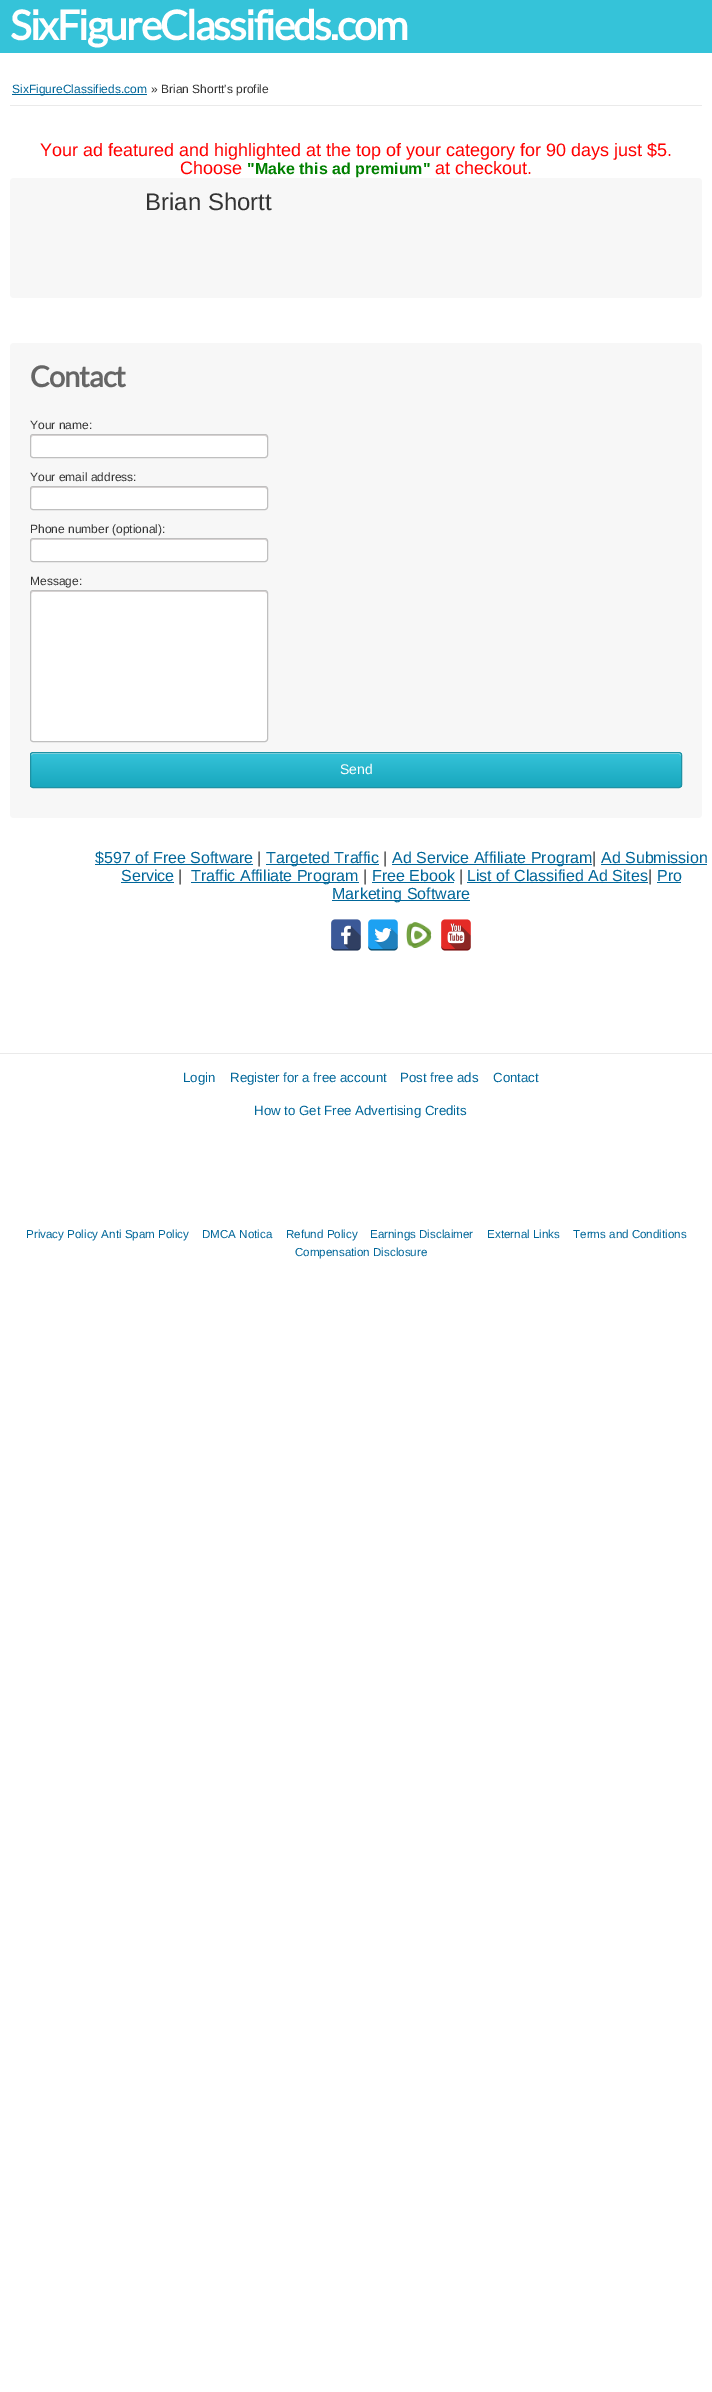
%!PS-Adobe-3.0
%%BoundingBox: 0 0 712 2392
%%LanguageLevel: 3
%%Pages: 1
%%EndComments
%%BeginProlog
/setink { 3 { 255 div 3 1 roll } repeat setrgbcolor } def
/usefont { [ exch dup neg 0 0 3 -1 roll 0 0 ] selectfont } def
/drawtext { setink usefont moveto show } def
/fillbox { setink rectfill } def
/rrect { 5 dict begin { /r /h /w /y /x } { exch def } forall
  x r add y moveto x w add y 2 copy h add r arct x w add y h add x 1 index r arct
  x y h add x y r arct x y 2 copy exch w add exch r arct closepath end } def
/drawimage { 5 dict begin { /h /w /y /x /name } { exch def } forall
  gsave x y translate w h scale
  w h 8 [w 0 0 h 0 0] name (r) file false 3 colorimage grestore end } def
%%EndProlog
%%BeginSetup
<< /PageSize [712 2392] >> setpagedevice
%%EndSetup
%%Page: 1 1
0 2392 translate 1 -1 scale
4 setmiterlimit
0 0 712 2392 255 255 255 fillbox
0 0 712 53 53 195 217 fillbox
/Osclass-Bold 40.75 usefont
255 255 255 setink
10 40 moveto -1.9 0 (SixFigureClassifieds.com) ashow
10 105 692 1 234 234 234 fillbox
12 94 135 1 0 102 153 fillbox
(SixFigureClassifieds.com) 12 93 /LiberationSans-Regular 12 0 102 153 drawtext
(» Brian Shortt's profile) 151 93 /LiberationSans-Regular 12 51 51 51 drawtext
(Your ad featured and highlighted at the top of your category for 90 days just $5.) 40 156 /LiberationSans-Regular 18 255 0 0 drawtext
(Choose) 180 174 /LiberationSans-Regular 18 255 0 0 drawtext
("Make this ad premium") 247 174 /LiberationSans-Bold 16 0 128 0 drawtext
(at checkout.) 435 174 /LiberationSans-Regular 18 255 0 0 drawtext
247 247 247 setink
10 178 692 120 4 rrect fill
(Brian Shortt) 145 210 /LiberationSans-Regular 24 51 51 51 drawtext
247 247 247 setink
10 343 692 475 4 rrect fill
/Osclass-Bold 29 usefont
102 102 102 setink
30 387 moveto -1 0 (Contact) ashow
(Your name:) 30 429 /LiberationSans-Regular 12 51 51 51 drawtext
255 255 255 setink
30 434 238 24 3 rrect fill
223 216 216 setink
33 436 moveto 265 436 lineto 266 436 267 437 267 438 curveto 267 437 267 435 265 435 curveto 33 435 lineto 31 436 lineto 31 438 lineto 31 437 32 436 33 436 curveto closepath fill
191 191 191 setink
30.5 434.5 237 23 2.5 rrect stroke
(Your email address:) 30 481 /LiberationSans-Regular 12 51 51 51 drawtext
255 255 255 setink
30 486 238 24 3 rrect fill
223 216 216 setink
33 488 moveto 265 488 lineto 266 488 267 489 267 490 curveto 267 489 267 487 265 487 curveto 33 487 lineto 31 488 lineto 31 490 lineto 31 489 32 488 33 488 curveto closepath fill
191 191 191 setink
30.5 486.5 237 23 2.5 rrect stroke
(Phone number \(optional\):) 30 533 /LiberationSans-Regular 12 51 51 51 drawtext
255 255 255 setink
30 538 238 24 3 rrect fill
223 216 216 setink
33 540 moveto 265 540 lineto 266 540 267 541 267 542 curveto 267 541 267 539 265 539 curveto 33 539 lineto 31 540 lineto 31 542 lineto 31 541 32 540 33 540 curveto closepath fill
191 191 191 setink
30.5 538.5 237 23 2.5 rrect stroke
(Message:) 30 585 /LiberationSans-Regular 12 51 51 51 drawtext
255 255 255 setink
30 590 238 152 3 rrect fill
223 216 216 setink
33 592 moveto 265 592 lineto 266 592 267 593 267 594 curveto 267 593 267 591 265 591 curveto 33 591 lineto 31 592 lineto 31 594 lineto 31 593 32 592 33 592 curveto closepath fill
191 191 191 setink
30.5 590.5 237 151 2.5 rrect stroke
gsave
30 752 652 36 3 rrect clip newpath
gsave 30 753 moveto 682 753 lineto 682 787 lineto 30 787 lineto closepath clip newpath
<< /ShadingType 2 /ColorSpace /DeviceRGB /Coords [356 753 356 787] /Extend [true true] /Function << /FunctionType 2 /Domain [0 1] /C0 [0.208 0.765 0.851] /C1 [0.094 0.655 0.745] /N 1 >> >> shfill grestore
grestore
160 227 237 setink
33 754 moveto 679 754 lineto 680 754 681 755 681 756 curveto 681 755 681 753 679 753 curveto 33 753 lineto 31 753 31 755 31 756 curveto 31 755 32 754 33 754 curveto closepath fill
31 145 163 setink
30.5 752.5 651 35 2.5 rrect stroke
(Send) 340 774 /LiberationSans-Regular 14 255 255 255 drawtext
95 864 158 1 0 102 153 fillbox
($597 of Free Software) 95 863 /LiberationSans-Regular 16 0 102 153 drawtext
(|) 257 863 /LiberationSans-Regular 16 51 51 51 drawtext
266 864 113 1 0 102 153 fillbox
(Targeted Traffic) 266 863 /LiberationSans-Regular 16 0 102 153 drawtext
(|) 383 863 /LiberationSans-Regular 16 51 51 51 drawtext
392 864 200 1 0 102 153 fillbox
(Ad Service Affiliate Program) 392 863 /LiberationSans-Regular 16 0 102 153 drawtext
(|) 592 863 /LiberationSans-Regular 16 51 51 51 drawtext
(Ad Submission) 601 863 /LiberationSans-Regular 16 0 102 153 drawtext
601 864 106 1 0 102 153 fillbox
(Service) 121 881 /LiberationSans-Regular 16 0 102 153 drawtext
121 882 53 1 0 102 153 fillbox
(|) 178 881 /LiberationSans-Regular 16 51 51 51 drawtext
191 882 168 1 0 102 153 fillbox
(Traffic Affiliate Program) 191 881 /LiberationSans-Regular 16 0 102 153 drawtext
(|) 363 881 /LiberationSans-Regular 16 51 51 51 drawtext
(Free Ebook) 372 881 /LiberationSans-Regular 16 0 102 153 drawtext
372 882 82 1 0 102 153 fillbox
(|) 459 881 /LiberationSans-Regular 16 51 51 51 drawtext
(List of Classified Ad Sites) 467 881 /LiberationSans-Regular 16 0 102 153 drawtext
467 882 181 1 0 102 153 fillbox
(|) 648 881 /LiberationSans-Regular 16 51 51 51 drawtext
(Pro) 657 881 /LiberationSans-Regular 16 0 102 153 drawtext
657 882 24 1 0 102 153 fillbox
332 900 138 1 0 102 153 fillbox
(Marketing Software) 332 899 /LiberationSans-Regular 16 0 102 153 drawtext
(assets/img1.rgb) 331 919 30 32 drawimage
(assets/img2.rgb) 368 919 30 32 drawimage
(assets/img3.rgb) 406 922 26 26 drawimage
(assets/img4.rgb) 441 919 30 32 drawimage
0 1053 712 1 234 234 234 fillbox
(Login) 183 1082 /LiberationSans-Regular 13.3 0 102 153 drawtext
(Register for a free account) 230 1082 /LiberationSans-Regular 13.3 0 102 153 drawtext
(Post free ads) 400 1082 /LiberationSans-Regular 13.3 0 102 153 drawtext
(Contact) 493 1082 /LiberationSans-Regular 13.3 0 102 153 drawtext
(How to Get Free Advertising Credits) 254 1115 /LiberationSans-Regular 13.3 0 102 153 drawtext
(Privacy Policy Anti Spam Policy) 26 1238 /LiberationSans-Regular 11.6 0 102 153 drawtext
(DMCA Notica) 202 1238 /LiberationSans-Regular 11.6 0 102 153 drawtext
(Refund Policy) 286 1238 /LiberationSans-Regular 11.6 0 102 153 drawtext
(Earnings Disclaimer) 370 1238 /LiberationSans-Regular 11.6 0 102 153 drawtext
(External Links) 487 1238 /LiberationSans-Regular 11.6 0 102 153 drawtext
(Terms and Conditions) 573 1238 /LiberationSans-Regular 11.6 0 102 153 drawtext
(Compensation Disclosure) 295 1256 /LiberationSans-Regular 11.6 0 102 153 drawtext
showpage
%%EOF
